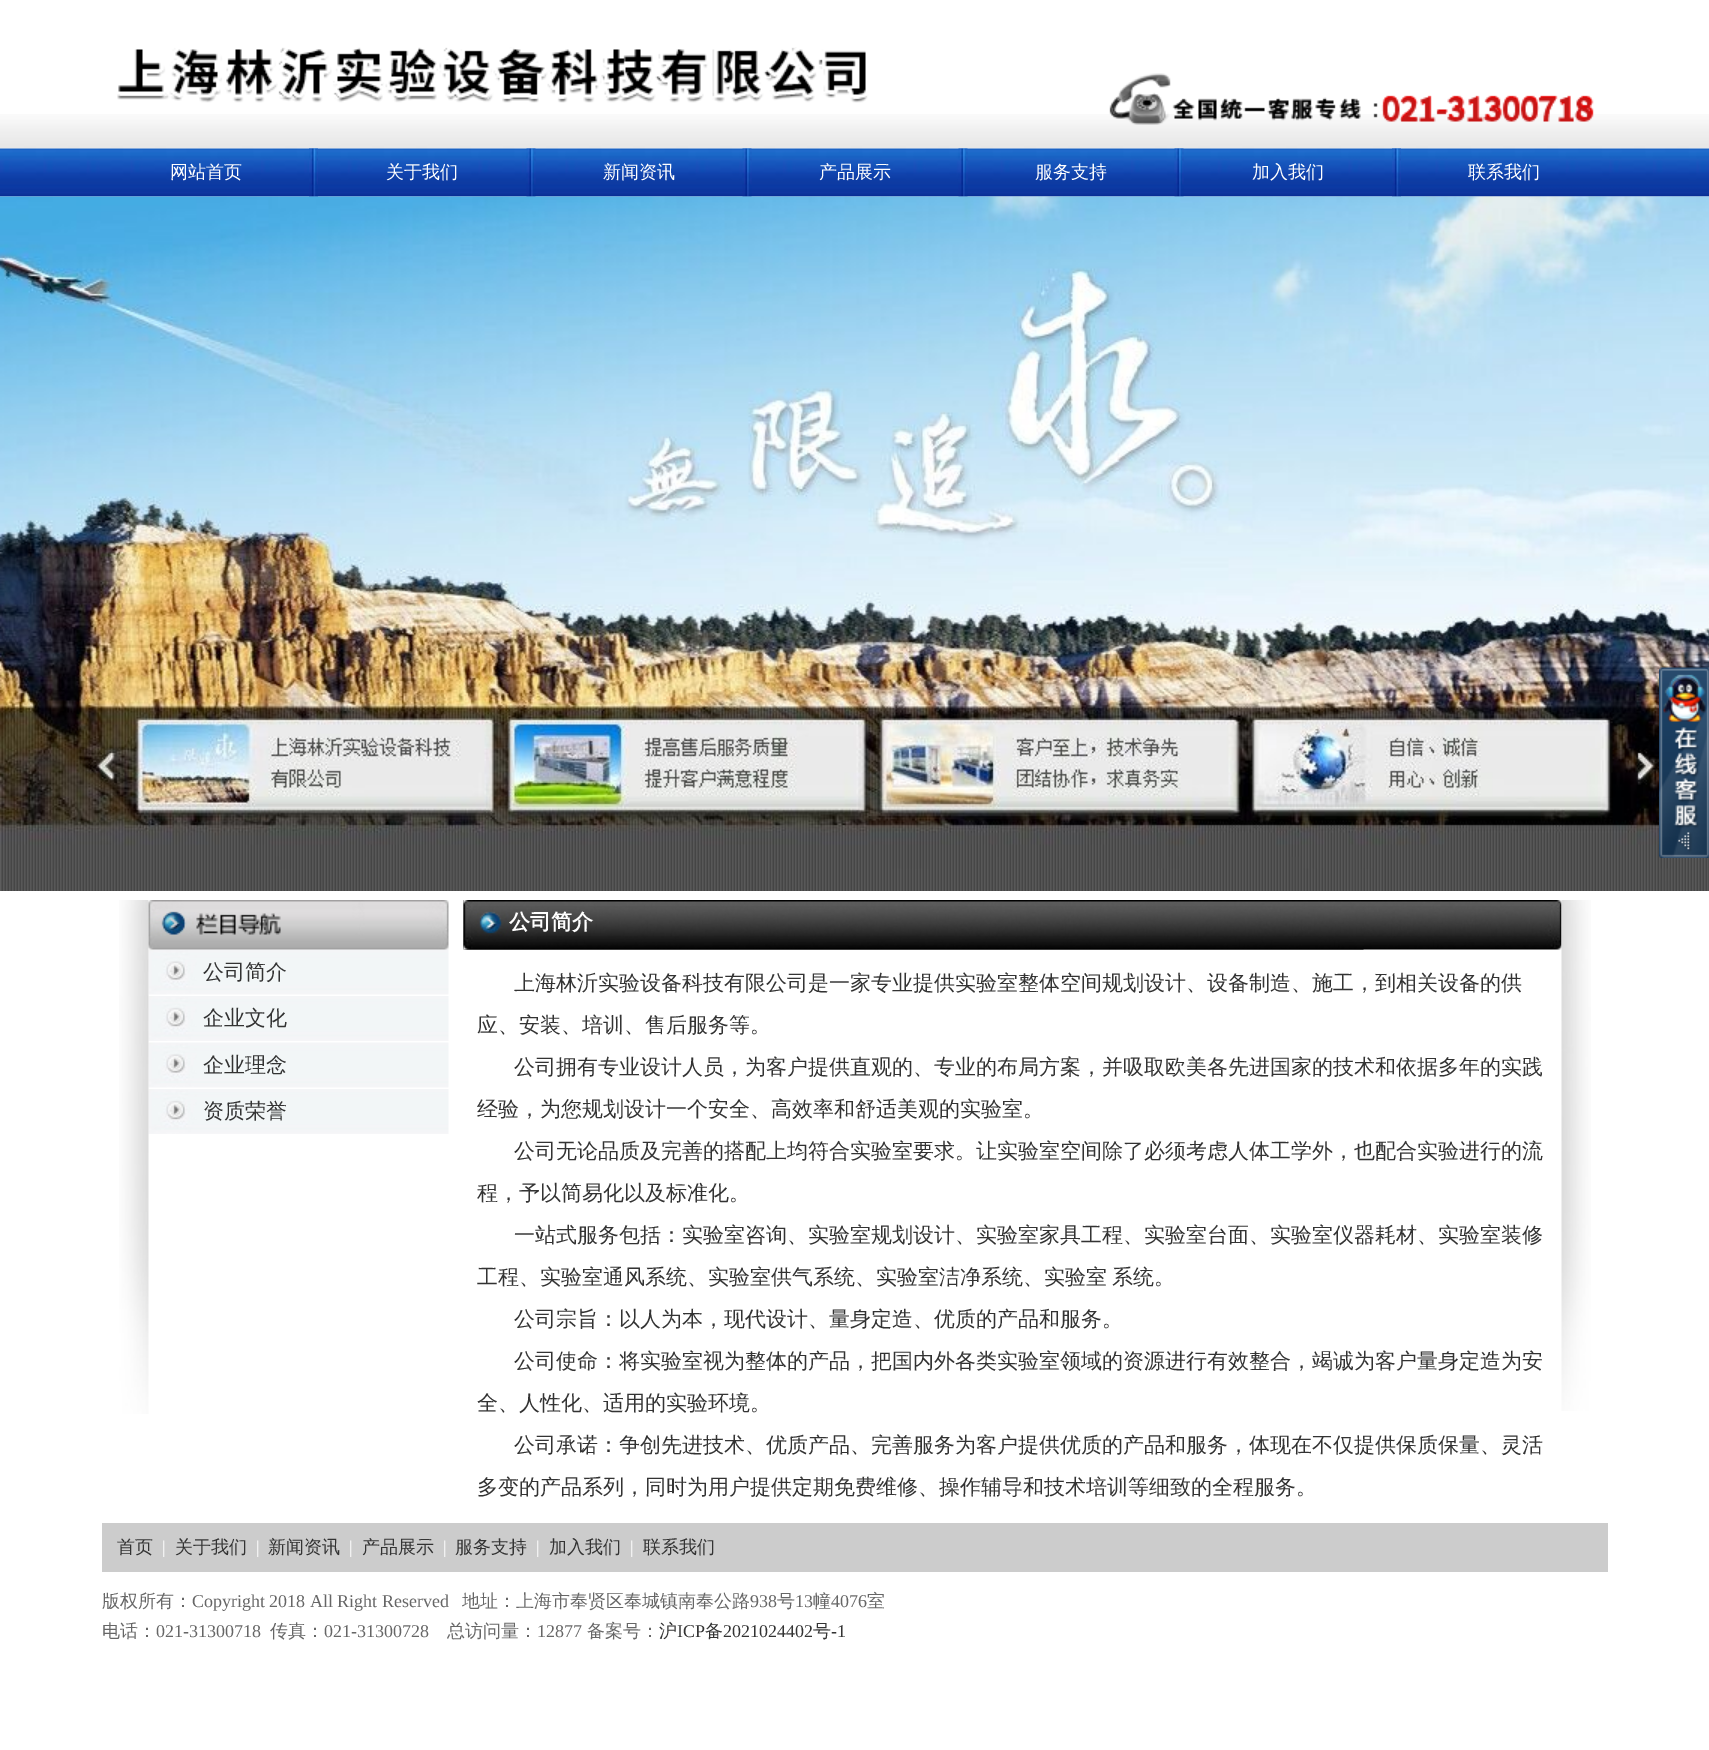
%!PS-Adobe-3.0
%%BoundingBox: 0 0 1709 1750
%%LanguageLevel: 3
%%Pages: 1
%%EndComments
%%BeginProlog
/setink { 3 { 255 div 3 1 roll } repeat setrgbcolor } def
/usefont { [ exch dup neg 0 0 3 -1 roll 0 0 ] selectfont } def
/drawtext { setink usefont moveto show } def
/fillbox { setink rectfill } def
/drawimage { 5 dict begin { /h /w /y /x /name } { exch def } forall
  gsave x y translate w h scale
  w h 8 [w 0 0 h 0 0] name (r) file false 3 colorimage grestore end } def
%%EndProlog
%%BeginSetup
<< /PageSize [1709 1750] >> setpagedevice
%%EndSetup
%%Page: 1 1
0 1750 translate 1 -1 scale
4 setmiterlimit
0 0 1709 1750 255 255 255 fillbox
(assets/img1.rgb) 0 114 1709 35 drawimage
(assets/img2.rgb) 117 47 1477 78 drawimage
(assets/img3.rgb) 0 148 1709 49 drawimage
(网站首页) 170 178 /WenQuanYiZenHei-Medium 18 255 255 255 drawtext
(assets/img4.rgb) 309 148 9 49 drawimage
(关于我们) 386 178 /WenQuanYiZenHei-Medium 18 255 255 255 drawtext
(assets/img5.rgb) 526 148 10 49 drawimage
(新闻资讯) 603 178 /WenQuanYiZenHei-Medium 18 255 255 255 drawtext
(assets/img6.rgb) 742 148 10 49 drawimage
(产品展示) 819 178 /WenQuanYiZenHei-Medium 18 255 255 255 drawtext
(assets/img7.rgb) 958 148 10 49 drawimage
(服务支持) 1035 178 /WenQuanYiZenHei-Medium 18 255 255 255 drawtext
(assets/img8.rgb) 1174 148 10 49 drawimage
(加入我们) 1252 178 /WenQuanYiZenHei-Medium 18 255 255 255 drawtext
(assets/img9.rgb) 1392 148 9 49 drawimage
(联系我们) 1468 178 /WenQuanYiZenHei-Medium 18 255 255 255 drawtext
(assets/img10.rgb) 0 196 1709 695 drawimage
(assets/img11.rgb) 1659 667 50 191 drawimage
(assets/img14.rgb) 148 949 301 46 drawimage
(assets/img15.rgb) 148 996 301 45 drawimage
(assets/img14.rgb) 148 1042 301 46 drawimage
(assets/img15.rgb) 148 1089 301 45 drawimage
(assets/img12.rgb) 119 900 30 514 drawimage
(assets/img13.rgb) 148 900 301 50 drawimage
(公司简介) 203 979 /WenQuanYiZenHei-Medium 21 51 51 51 drawtext
(企业文化) 203 1025 /WenQuanYiZenHei-Medium 21 51 51 51 drawtext
(企业理念) 203 1072 /WenQuanYiZenHei-Medium 21 51 51 51 drawtext
(资质荣誉) 203 1118 /WenQuanYiZenHei-Medium 21 51 51 51 drawtext
(assets/img16.rgb) 463 900 1099 50 drawimage
(assets/img17.rgb) 463 900 901 50 drawimage
(公司简介) 509 929 /WenQuanYiZenHei-Bold 21 255 255 255 drawtext
(上海林沂实验设备科技有限公司是一家专业提供实验室整体空间规划设计、设备制造、施工，到相关设备的供) 514 990 /WenQuanYiZenHei-Medium 21 51 51 51 drawtext
(应、安装、培训、售后服务等。) 477 1032 /WenQuanYiZenHei-Medium 21 51 51 51 drawtext
(公司拥有专业设计人员，为客户提供直观的、专业的布局方案，并吸取欧美各先进国家的技术和依据多年的实践) 514 1074 /WenQuanYiZenHei-Medium 21 51 51 51 drawtext
(经验，为您规划设计一个安全、高效率和舒适美观的实验室。) 477 1116 /WenQuanYiZenHei-Medium 21 51 51 51 drawtext
(公司无论品质及完善的搭配上均符合实验室要求。让实验室空间除了必须考虑人体工学外，也配合实验进行的流) 514 1158 /WenQuanYiZenHei-Medium 21 51 51 51 drawtext
(程，予以简易化以及标准化。) 477 1200 /WenQuanYiZenHei-Medium 21 51 51 51 drawtext
(一站式服务包括：实验室咨询、实验室规划设计、实验室家具工程、实验室台面、实验室仪器耗材、实验室装修) 514 1242 /WenQuanYiZenHei-Medium 21 51 51 51 drawtext
477 1284 moveto -1 0 32 (工程、实验室通风系统、实验室供气系统、实验室洁净系统、实验室 系统。) widthshow
(公司宗旨：以人为本，现代设计、量身定造、优质的产品和服务。) 514 1326 /WenQuanYiZenHei-Medium 21 51 51 51 drawtext
(公司使命：将实验室视为整体的产品，把国内外各类实验室领域的资源进行有效整合，竭诚为客户量身定造为安) 514 1368 /WenQuanYiZenHei-Medium 21 51 51 51 drawtext
(全、人性化、适用的实验环境。) 477 1410 /WenQuanYiZenHei-Medium 21 51 51 51 drawtext
(公司承诺：争创先进技术、优质产品、完善服务为客户提供优质的产品和服务，体现在不仅提供保质保量、灵活) 514 1452 /WenQuanYiZenHei-Medium 21 51 51 51 drawtext
(多变的产品系列，同时为用户提供定期免费维修、操作辅导和技术培训等细致的全程服务。) 477 1494 /WenQuanYiZenHei-Medium 21 51 51 51 drawtext
(assets/img18.rgb) 1561 900 30 511 drawimage
102 1523 1506 49 204 204 204 fillbox
(首页) 117 1553 /WenQuanYiZenHei-Medium 18 51 51 51 drawtext
(|) 162 1553 /LiberationSerif-Regular 18 255 255 255 drawtext
(关于我们) 175 1553 /WenQuanYiZenHei-Medium 18 51 51 51 drawtext
(|) 256 1553 /LiberationSerif-Regular 18 255 255 255 drawtext
(新闻资讯) 268 1553 /WenQuanYiZenHei-Medium 18 51 51 51 drawtext
(|) 349 1553 /LiberationSerif-Regular 18 255 255 255 drawtext
(产品展示) 362 1553 /WenQuanYiZenHei-Medium 18 51 51 51 drawtext
(|) 443 1553 /LiberationSerif-Regular 18 255 255 255 drawtext
(服务支持) 455 1553 /WenQuanYiZenHei-Medium 18 51 51 51 drawtext
(|) 536 1553 /LiberationSerif-Regular 18 255 255 255 drawtext
(加入我们) 549 1553 /WenQuanYiZenHei-Medium 18 51 51 51 drawtext
(|) 630 1553 /LiberationSerif-Regular 18 255 255 255 drawtext
(联系我们) 643 1553 /WenQuanYiZenHei-Medium 18 51 51 51 drawtext
(版权所有：) 102 1607 /WenQuanYiZenHei-Medium 18 102 102 102 drawtext
(Copyright 2018 All Right Reserved) 192 1607 /LiberationSerif-Regular 18 102 102 102 drawtext
(地址：上海市奉贤区奉城镇南奉公路) 462 1607 /WenQuanYiZenHei-Medium 18 102 102 102 drawtext
(938) 750 1607 /LiberationSerif-Regular 18 102 102 102 drawtext
(号) 777 1607 /WenQuanYiZenHei-Medium 18 102 102 102 drawtext
(13) 795 1607 /LiberationSerif-Regular 18 102 102 102 drawtext
(幢) 813 1607 /WenQuanYiZenHei-Medium 18 102 102 102 drawtext
(4076) 831 1607 /LiberationSerif-Regular 18 102 102 102 drawtext
(室) 867 1607 /WenQuanYiZenHei-Medium 18 102 102 102 drawtext
(电话：) 102 1637 /WenQuanYiZenHei-Medium 18 102 102 102 drawtext
(021-31300718) 156 1637 /LiberationSerif-Regular 18 102 102 102 drawtext
(传真：) 270 1637 /WenQuanYiZenHei-Medium 18 102 102 102 drawtext
(021-31300728) 324 1637 /LiberationSerif-Regular 18 102 102 102 drawtext
(总访问量：) 447 1637 /WenQuanYiZenHei-Medium 18 102 102 102 drawtext
(12877) 537 1637 /LiberationSerif-Regular 18 102 102 102 drawtext
(备案号：) 587 1637 /WenQuanYiZenHei-Medium 18 102 102 102 drawtext
(沪) 659 1637 /WenQuanYiZenHei-Medium 18 51 51 51 drawtext
(ICP) 677 1637 /LiberationSerif-Regular 18 51 51 51 drawtext
(备) 705 1637 /WenQuanYiZenHei-Medium 18 51 51 51 drawtext
(2021024402) 723 1637 /LiberationSerif-Regular 18 51 51 51 drawtext
(号) 813 1637 /WenQuanYiZenHei-Medium 18 51 51 51 drawtext
(-1) 831 1637 /LiberationSerif-Regular 18 51 51 51 drawtext
showpage
%%EOF
